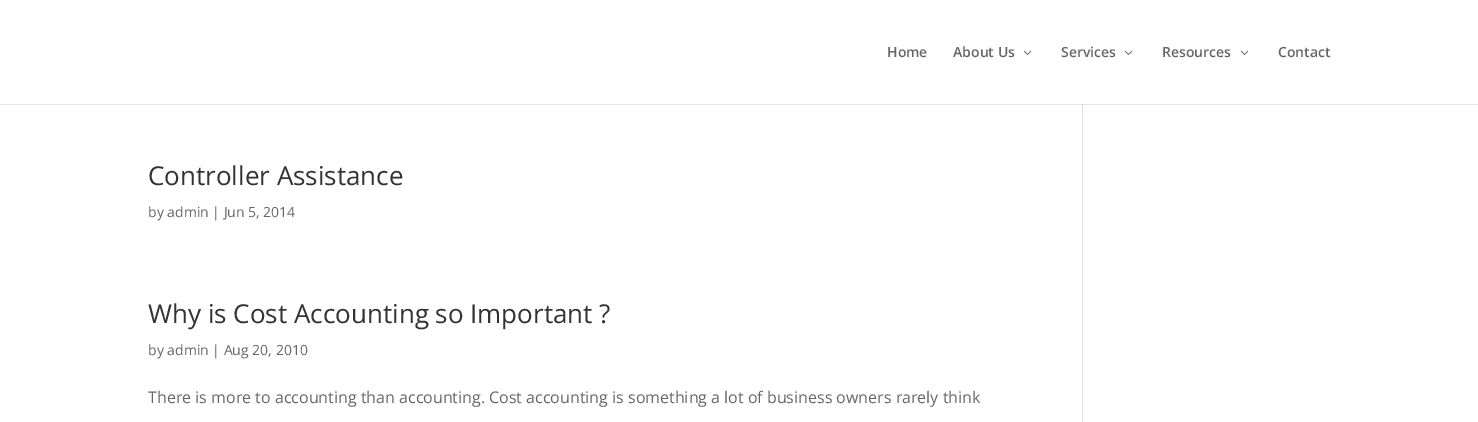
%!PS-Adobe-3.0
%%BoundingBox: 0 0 1478 422
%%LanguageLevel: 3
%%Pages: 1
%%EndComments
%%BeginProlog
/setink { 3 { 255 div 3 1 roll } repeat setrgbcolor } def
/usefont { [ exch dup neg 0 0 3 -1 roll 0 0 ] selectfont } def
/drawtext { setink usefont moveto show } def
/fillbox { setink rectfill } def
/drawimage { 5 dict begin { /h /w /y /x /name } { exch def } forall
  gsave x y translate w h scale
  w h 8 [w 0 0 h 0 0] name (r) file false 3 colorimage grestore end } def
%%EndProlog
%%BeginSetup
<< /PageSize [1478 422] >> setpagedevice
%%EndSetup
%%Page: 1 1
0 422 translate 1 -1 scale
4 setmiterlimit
0 0 1478 422 255 255 255 fillbox
0 104 1478 1 230 230 230 fillbox
(Home) 887 57 /OpenSans-SemiBold 14 102 102 102 drawtext
(About Us) 953 57 /OpenSans-SemiBold 14 102 102 102 drawtext
(assets/img1.rgb) 1023 50 9 5 drawimage
(Services) 1061 57 /OpenSans-SemiBold 14 102 102 102 drawtext
(assets/img1.rgb) 1124 50 9 5 drawimage
(Resources) 1162 57 /OpenSans-SemiBold 14 102 102 102 drawtext
(assets/img1.rgb) 1240 50 9 5 drawimage
(Contact) 1278 57 /OpenSans-SemiBold 14 102 102 102 drawtext
(Controller Assistance) 148 185 /OpenSans-Regular 26 51 51 51 drawtext
(by admin | Jun 5, 2014) 148 217 /OpenSans-Regular 14 102 102 102 drawtext
(Why is Cost Accounting so Important ?) 148 323 /OpenSans-Regular 26 51 51 51 drawtext
(by admin | Aug 20, 2010) 148 355 /OpenSans-Regular 14 102 102 102 drawtext
(There is more to accounting than accounting. Cost accounting is something a lot of business owners rarely think) 148 403 /OpenSans-Regular 16 102 102 102 drawtext
1082 104 1 318 226 226 226 fillbox
1082 104 1 1 203 203 203 fillbox
showpage
%%EOF
